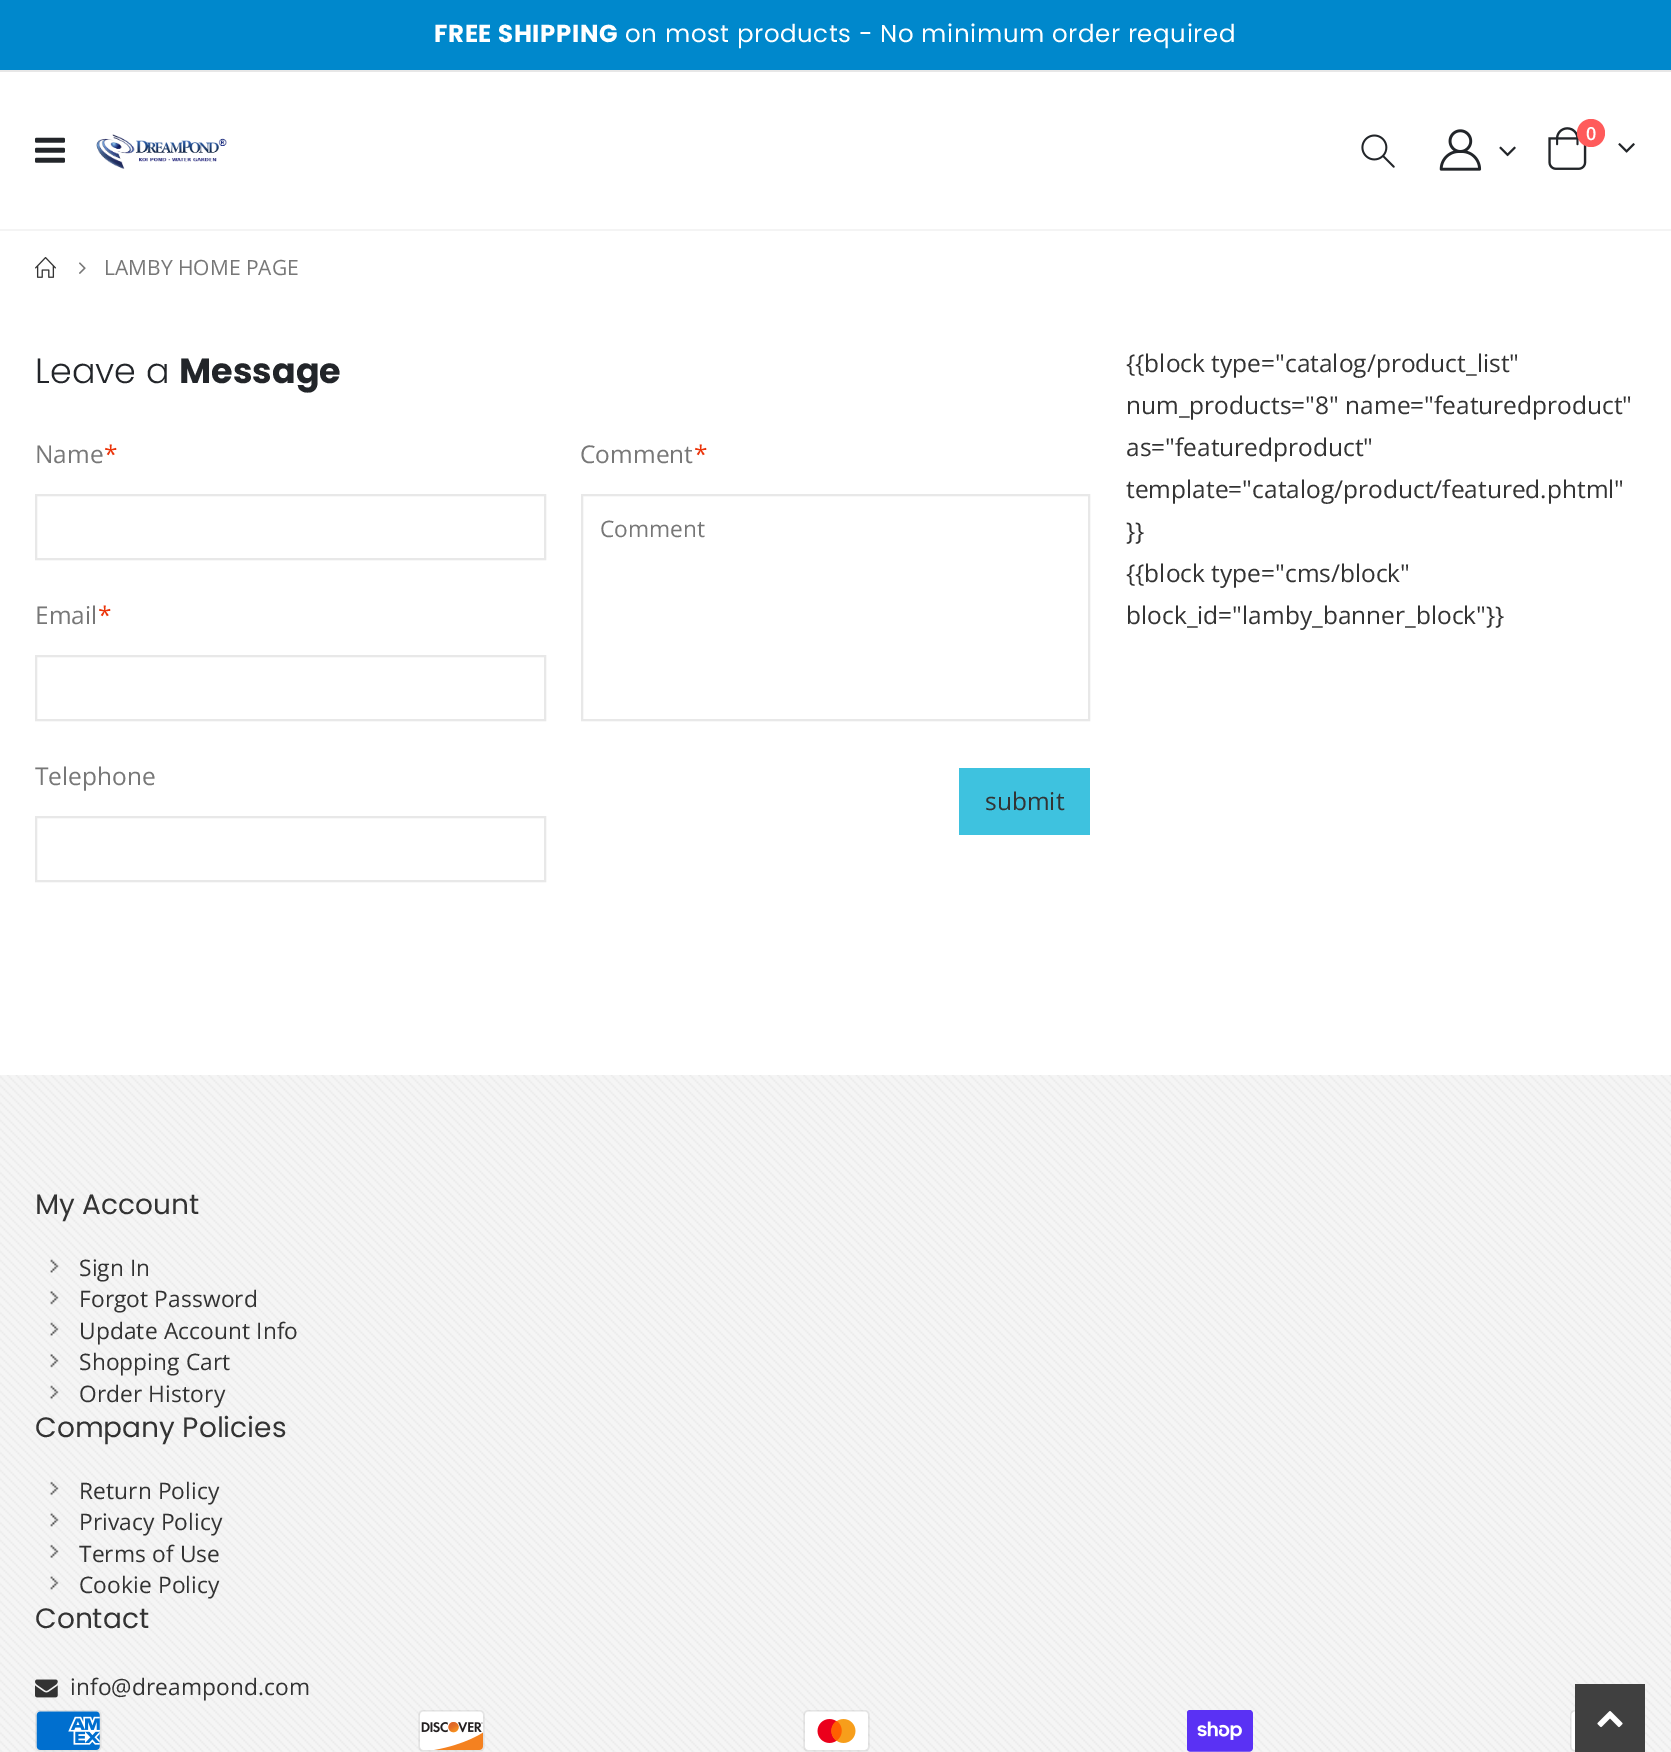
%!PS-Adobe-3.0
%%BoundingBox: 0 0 1671 1752
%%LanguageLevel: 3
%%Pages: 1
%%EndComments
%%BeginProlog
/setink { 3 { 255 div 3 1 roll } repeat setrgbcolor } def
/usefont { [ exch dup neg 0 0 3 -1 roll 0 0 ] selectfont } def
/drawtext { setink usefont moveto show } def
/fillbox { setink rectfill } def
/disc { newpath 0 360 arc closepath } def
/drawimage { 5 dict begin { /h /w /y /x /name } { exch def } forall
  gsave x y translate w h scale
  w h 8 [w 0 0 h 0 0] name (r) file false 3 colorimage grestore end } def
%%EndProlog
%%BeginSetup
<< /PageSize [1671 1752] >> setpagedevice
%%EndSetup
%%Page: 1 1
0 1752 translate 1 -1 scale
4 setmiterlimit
0 0 1671 1752 255 255 255 fillbox
0 0 1671 70 0 136 204 fillbox
/Poppins-Bold 24.5 usefont
255 255 255 setink
434 42 moveto 0.6 0 (FREE SHIPPING) ashow
/Poppins-Regular 24.5 usefont
625 42 moveto 0.6 0 (on most products - No minimum order required) ashow
0 229 1671 2 244 244 244 fillbox
0 70 1671 2 231 231 231 fillbox
(assets/img1.rgb) 35 137 30 26 drawimage
(assets/img2.rgb) 96 134 131 35 drawimage
(assets/img3.rgb) 1361 134 34 34 drawimage
(assets/img4.rgb) 1439 129 43 42 drawimage
(assets/img5.rgb) 1499 146 17 11 drawimage
(assets/img6.rgb) 1548 127 39 43 drawimage
255 91 91 setink
1591 133 14 disc fill
(0) 1586 140 /OpenSans-SemiBold 18 255 255 255 drawtext
(assets/img7.rgb) 1618 143 17 10 drawimage
(assets/img8.rgb) 35 257 21 21 drawimage
(assets/img9.rgb) 79 262 7 12 drawimage
(LAMBY HOME PAGE) 104 275 /OpenSans-Regular 21 119 119 119 drawtext
(Leave a) 35 383 /Poppins-Light 35 34 37 41 drawtext
(Message) 179 383 /Poppins-Bold 35 34 37 41 drawtext
(Name) 35 463 /OpenSans-Regular 24.5 119 119 119 drawtext
(*) 104 463 /OpenSans-Regular 24.5 235 52 10 drawtext
232 232 232 setink
2 setlinewidth
36 495 509 64 rectstroke
(Email) 35 624 /OpenSans-Regular 24.5 119 119 119 drawtext
(*) 98 624 /OpenSans-Regular 24.5 235 52 10 drawtext
232 232 232 setink
36 656 509 64 rectstroke
(Telephone) 35 785 /OpenSans-Regular 24.5 119 119 119 drawtext
232 232 232 setink
36 817 509 64 rectstroke
(Comment) 580 463 /OpenSans-Regular 24.5 119 119 119 drawtext
(*) 694 463 /OpenSans-Regular 24.5 235 52 10 drawtext
232 232 232 setink
582 495 507 225 rectstroke
(Comment) 600 537 /OpenSans-Regular 22.75 119 119 119 drawtext
959 768 131 67 62 194 223 fillbox
(submit) 985 810 /OpenSans-Regular 24.5 51 51 51 drawtext
({{block type="catalog/product_list") 1126 372 /OpenSans-Regular 24.5 51 51 51 drawtext
(num_products="8" name="featuredproduct") 1126 414 /OpenSans-Regular 24.5 51 51 51 drawtext
(as="featuredproduct") 1126 456 /OpenSans-Regular 24.5 51 51 51 drawtext
(template="catalog/product/featured.phtml") 1126 498 /OpenSans-Regular 24.5 51 51 51 drawtext
(}}) 1126 540 /OpenSans-Regular 24.5 51 51 51 drawtext
({{block type="cms/block") 1126 582 /OpenSans-Regular 24.5 51 51 51 drawtext
(block_id="lamby_banner_block"}}) 1126 624 /OpenSans-Regular 24.5 51 51 51 drawtext
0 1075 1671 677 245 245 245 fillbox
(assets/img10.rgb) 0 1075 1671 677 drawimage
(My Account) 35 1214 /Poppins-Regular 28 51 51 51 drawtext
(assets/img11.rgb) 50 1259 9 14 drawimage
/OpenSans-Regular 22.75 usefont
79 1276 moveto 0.1 0 (Sign In) ashow
(assets/img12.rgb) 50 1291 9 14 drawimage
79 1307 moveto 0.1 0 (Forgot Password) ashow
(assets/img13.rgb) 50 1322 9 14 drawimage
79 1339 moveto 0.1 0 (Update Account Info) ashow
(assets/img14.rgb) 50 1354 9 14 drawimage
79 1370 moveto 0.1 0 (Shopping Cart) ashow
(assets/img15.rgb) 50 1385 9 14 drawimage
79 1402 moveto 0.1 0 (Order History) ashow
(Company Policies) 35 1437 /Poppins-Regular 28 51 51 51 drawtext
(assets/img16.rgb) 50 1481 9 14 drawimage
/OpenSans-Regular 22.75 usefont
79 1499 moveto 0.1 0 (Return Policy) ashow
(assets/img17.rgb) 50 1513 9 14 drawimage
79 1530 moveto 0.1 0 (Privacy Policy) ashow
(assets/img18.rgb) 50 1544 9 14 drawimage
79 1562 moveto 0.1 0 (Terms of Use) ashow
(assets/img19.rgb) 50 1576 9 14 drawimage
79 1593 moveto 0.1 0 (Cookie Policy) ashow
(Contact) 35 1628 /Poppins-Regular 28 51 51 51 drawtext
(assets/img20.rgb) 35 1679 23 19 drawimage
/OpenSans-Regular 22.75 usefont
70 1695 moveto 0.1 0 (info@dreampond.com) ashow
(assets/img21.rgb) 35 1710 67 42 drawimage
(assets/img22.rgb) 418 1710 67 42 drawimage
(assets/img23.rgb) 803 1710 67 42 drawimage
(assets/img24.rgb) 1187 1710 66 42 drawimage
(assets/img25.rgb) 1570 1710 5 42 drawimage
1575 1684 70 68 64 64 64 fillbox
(assets/img26.rgb) 1597 1711 26 17 drawimage
showpage
%%EOF
